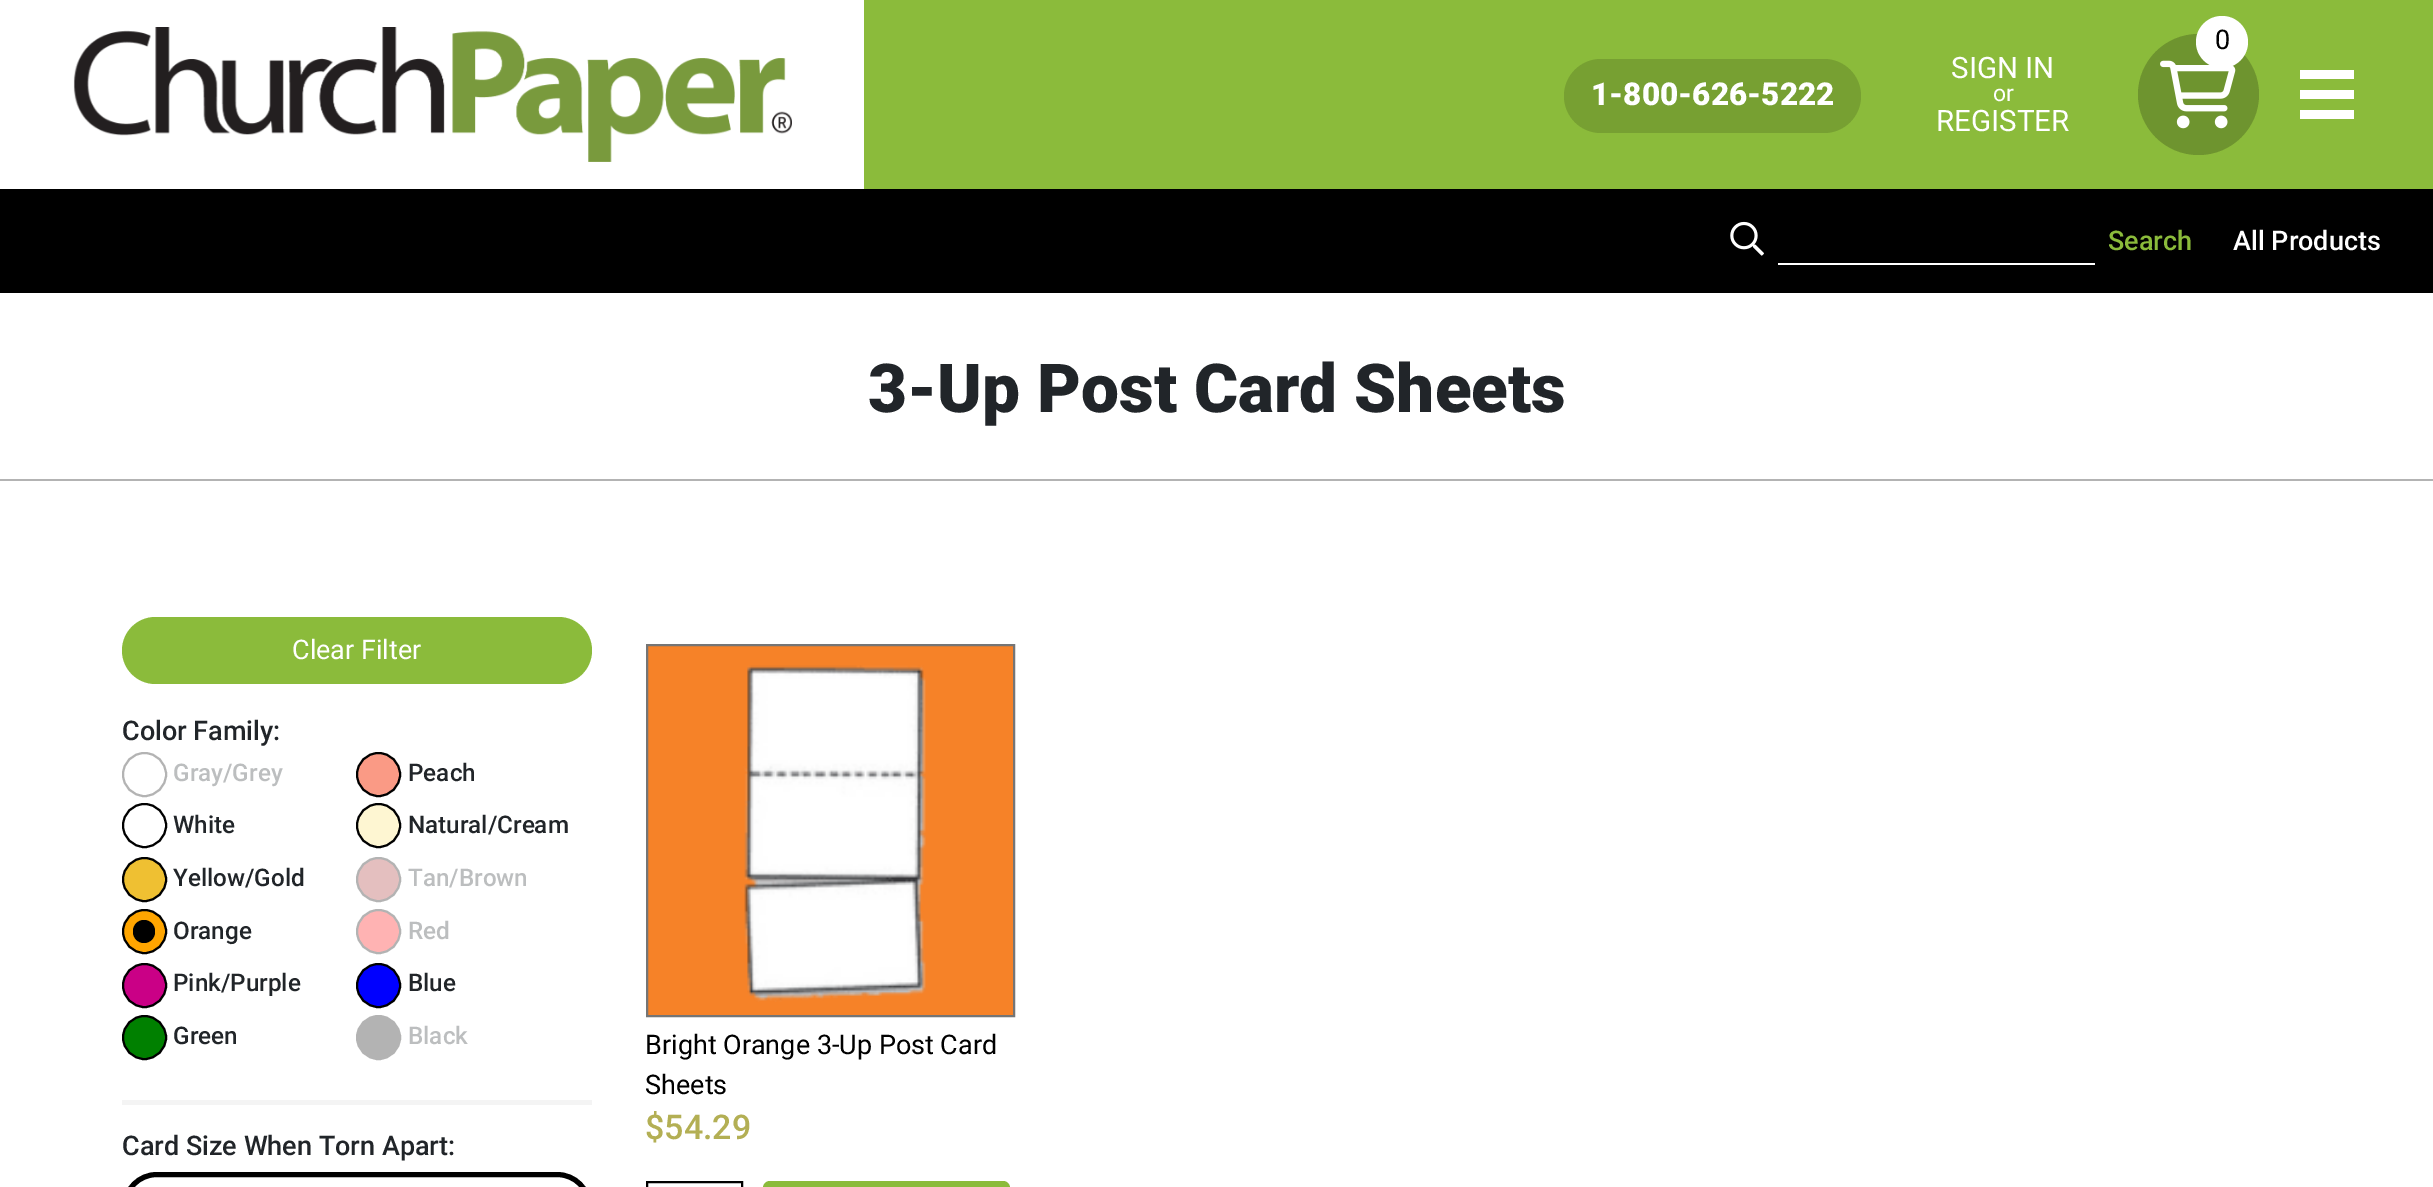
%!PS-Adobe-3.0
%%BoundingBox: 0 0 2433 1187
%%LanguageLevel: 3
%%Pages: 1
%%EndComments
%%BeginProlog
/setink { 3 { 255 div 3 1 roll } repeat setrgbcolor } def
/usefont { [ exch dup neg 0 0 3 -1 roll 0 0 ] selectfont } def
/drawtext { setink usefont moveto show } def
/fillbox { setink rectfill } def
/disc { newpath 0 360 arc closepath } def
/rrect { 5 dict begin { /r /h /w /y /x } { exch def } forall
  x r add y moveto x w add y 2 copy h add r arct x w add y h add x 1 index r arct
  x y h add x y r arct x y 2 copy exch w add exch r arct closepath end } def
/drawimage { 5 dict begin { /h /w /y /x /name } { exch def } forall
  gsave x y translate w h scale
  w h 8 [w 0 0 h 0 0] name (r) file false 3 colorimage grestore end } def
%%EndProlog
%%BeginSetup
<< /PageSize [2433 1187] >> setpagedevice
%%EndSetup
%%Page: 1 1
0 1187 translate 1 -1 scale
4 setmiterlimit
0 0 2433 1187 255 255 255 fillbox
864 0 1569 189 139 187 59 fillbox
(assets/img1.rgb) 73 27 719 135 drawimage
110 148 47 setink
2198.5 94.5 60.5 disc fill
(assets/img2.rgb) 2160 60 76 69 drawimage
255 255 255 setink
2222 42 26 disc fill
(0) 2215 49 /Roboto-Regular 27 0 0 0 drawtext
119 160 50 setink
1564 59 297 74 37 rrect fill
(1-800-626-5222) 1591 105 /Roboto-Black 31.5 255 255 255 drawtext
(SIGN IN) 1951 78 /Roboto-Regular 29.5 255 255 255 drawtext
(or) 1993 101 /Roboto-Regular 23 255 255 255 drawtext
(REGISTER) 1936 131 /Roboto-Regular 29.5 255 255 255 drawtext
2300 70 54 9 255 255 255 fillbox
2300 90 54 9 255 255 255 fillbox
2300 110 54 9 255 255 255 fillbox
0 189 2433 104 0 0 0 fillbox
(assets/img3.rgb) 1730 221 34 35 drawimage
(Search) 2108 250 /Roboto-Medium 27 139 187 59 drawtext
1778 263 317 2 255 255 255 fillbox
(All Products) 2233 250 /Roboto-Medium 27 255 255 255 drawtext
0 479 2433 2 179 179 179 fillbox
(3-Up Post Card Sheets) 868 412 /Roboto-Black 67.5 33 37 41 drawtext
139 187 59 setink
122 617 470 67 33.5 rrect fill
(Clear Filter) 292 659 /Roboto-Regular 27 255 255 255 drawtext
122 1100 470 5 244 244 244 fillbox
(Color Family:) 122 740 /Roboto-Medium 27 33 37 41 drawtext
179 179 179 setink
2 setlinewidth
144.5 774.5 21.5 disc stroke
(Gray/Grey) 173 781 /Roboto-Medium 24.25 188 190 191 drawtext
250 154 133 setink
378.5 774.5 21.5 disc gsave fill grestore
0 0 0 setink
stroke
(Peach) 408 781 /Roboto-Medium 24.25 33 37 41 drawtext
0 0 0 setink
144.5 825.5 21.5 disc stroke
(White) 173 833 /Roboto-Medium 24.25 33 37 41 drawtext
254 246 210 setink
378.5 825.5 21.5 disc gsave fill grestore
0 0 0 setink
stroke
(Natural/Cream) 408 833 /Roboto-Medium 24.25 33 37 41 drawtext
239 192 50 setink
144.5 879.5 21.5 disc gsave fill grestore
0 0 0 setink
stroke
(Yellow/Gold) 173 886 /Roboto-Medium 24.25 33 37 41 drawtext
228 191 191 setink
378.5 879.5 21.5 disc gsave fill grestore
179 179 179 setink
stroke
(Tan/Brown) 408 886 /Roboto-Medium 24.25 188 190 191 drawtext
255 165 0 setink
144.5 931.5 21.5 disc gsave fill grestore
0 0 0 setink
stroke
133 920 22 23 11 rrect fill
(Orange) 173 939 /Roboto-Medium 24.25 33 37 41 drawtext
255 179 179 setink
378.5 931.5 21.5 disc gsave fill grestore
179 179 179 setink
stroke
(Red) 408 939 /Roboto-Medium 24.25 188 190 191 drawtext
202 0 134 setink
144.5 985.5 21.5 disc gsave fill grestore
0 0 0 setink
stroke
(Pink/Purple) 173 991 /Roboto-Medium 24.25 33 37 41 drawtext
0 0 255 setink
378.5 985.5 21.5 disc gsave fill grestore
0 0 0 setink
stroke
(Blue) 408 991 /Roboto-Medium 24.25 33 37 41 drawtext
0 128 0 setink
144.5 1037.5 21.5 disc gsave fill grestore
0 0 0 setink
stroke
(Green) 173 1044 /Roboto-Medium 24.25 33 37 41 drawtext
179 179 179 setink
378.5 1037.5 21.5 disc gsave fill grestore
stroke
(Black) 408 1044 /Roboto-Medium 24.25 188 190 191 drawtext
(Card Size When Torn Apart:) 122 1155 /Roboto-Medium 27 33 37 41 drawtext
0 0 0 setink
5 setlinewidth
124.5 1174.5 465 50 32.5 rrect stroke
246 130 40 setink
647 645 moveto 1014 645 lineto 1014 1016 lineto 647 1016 lineto closepath gsave fill grestore
117 117 117 setink
2 setlinewidth
stroke
(assets/img4.rgb) 741 665 185 337 drawimage
(Bright Orange 3-Up Post Card) 645 1054 /Roboto-Regular 27 0 0 0 drawtext
(Sheets) 645 1094 /Roboto-Regular 27 0 0 0 drawtext
($54.29) 645 1139 /Roboto-Medium 34 179 175 84 drawtext
0 0 0 setink
647 1182 95 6 rectstroke
139 187 59 setink
763 1181 247 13 7 rrect fill
showpage
%%EOF
